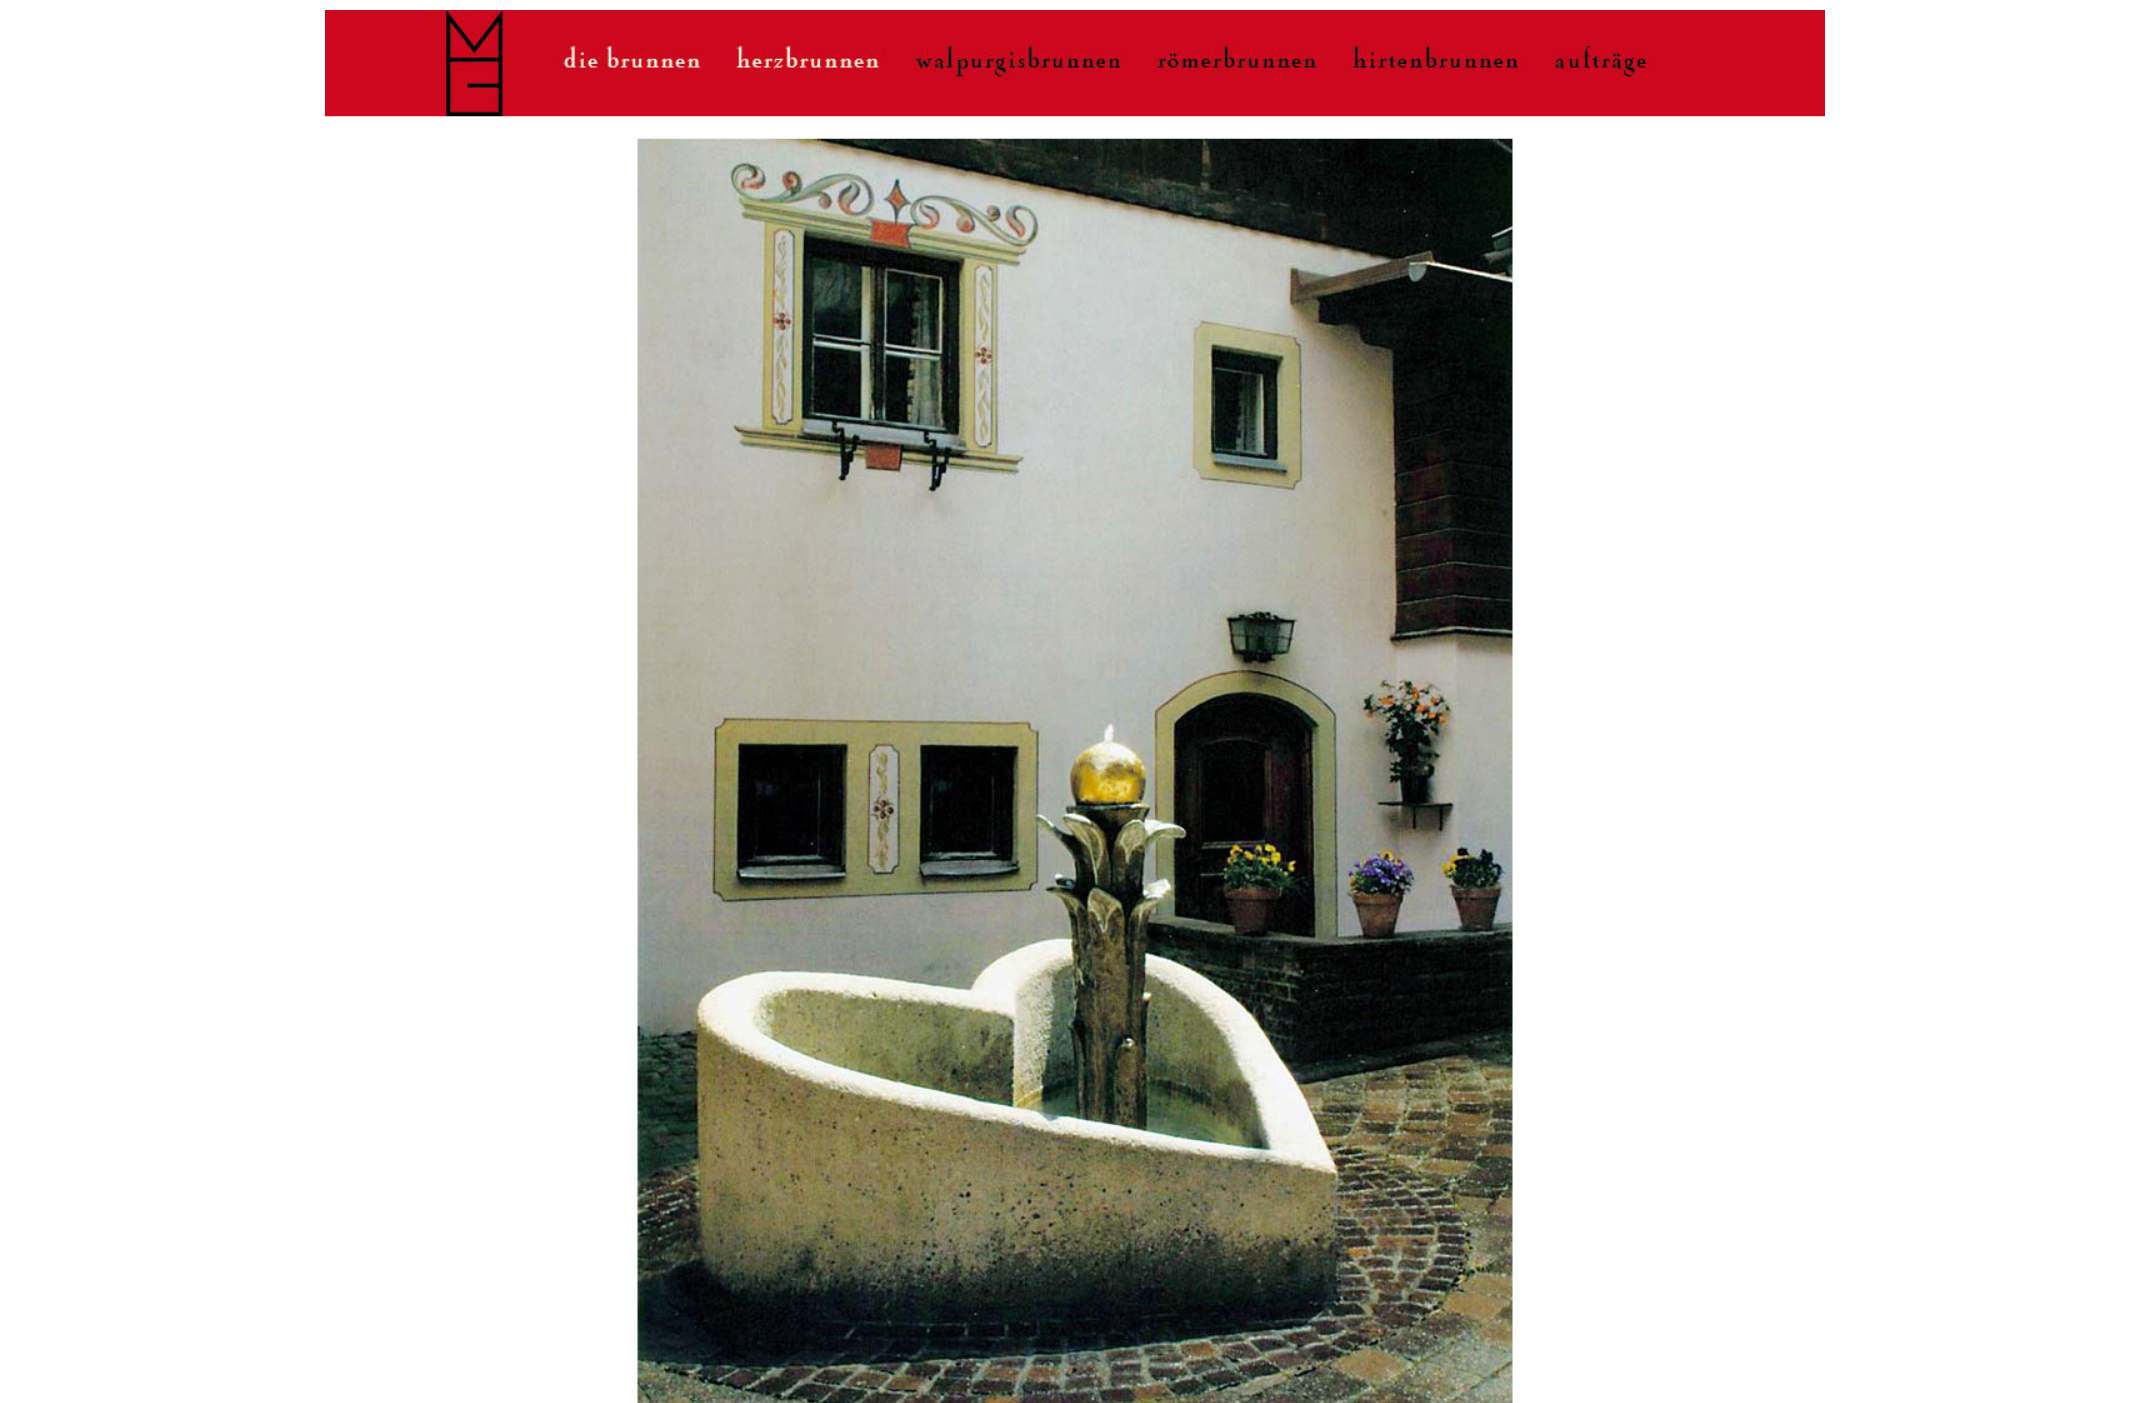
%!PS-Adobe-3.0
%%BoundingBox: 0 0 2149 1403
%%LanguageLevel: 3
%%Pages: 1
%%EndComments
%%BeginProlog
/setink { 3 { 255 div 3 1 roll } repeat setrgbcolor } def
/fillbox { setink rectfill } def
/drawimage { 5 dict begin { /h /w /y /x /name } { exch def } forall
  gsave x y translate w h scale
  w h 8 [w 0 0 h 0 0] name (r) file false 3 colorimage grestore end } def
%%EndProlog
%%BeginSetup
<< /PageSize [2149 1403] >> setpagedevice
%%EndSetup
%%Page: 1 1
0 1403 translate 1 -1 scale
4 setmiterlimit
0 0 2149 1403 255 255 255 fillbox
(assets/img1.rgb) 325 10 1500 107 drawimage
(assets/img2.rgb) 637 138 876 1265 drawimage
showpage
%%EOF
